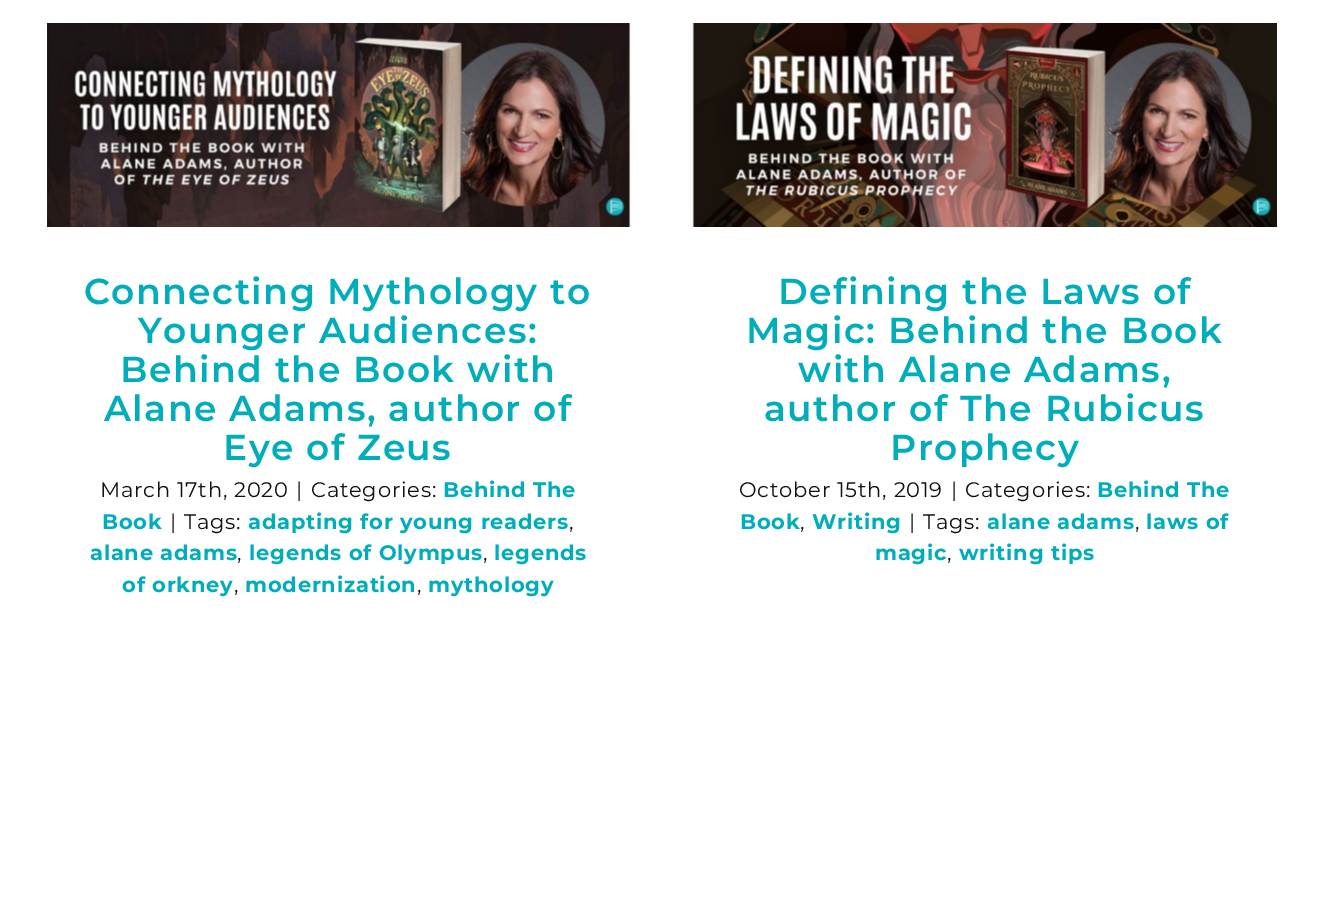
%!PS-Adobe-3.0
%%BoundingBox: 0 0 1323 922
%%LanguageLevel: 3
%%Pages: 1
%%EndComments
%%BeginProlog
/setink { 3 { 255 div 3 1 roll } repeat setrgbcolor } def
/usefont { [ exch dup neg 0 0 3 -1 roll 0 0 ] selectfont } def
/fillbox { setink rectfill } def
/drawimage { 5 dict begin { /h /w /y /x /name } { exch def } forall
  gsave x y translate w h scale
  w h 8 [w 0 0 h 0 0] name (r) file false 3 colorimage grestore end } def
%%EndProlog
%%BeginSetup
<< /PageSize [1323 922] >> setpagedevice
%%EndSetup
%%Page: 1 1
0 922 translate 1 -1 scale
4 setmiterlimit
0 0 1323 922 255 255 255 fillbox
(assets/img1.rgb) 47 23 584 204 drawimage
/Montserrat-SemiBold 36 usefont
0 173 187 setink
84 304 moveto 1.5 0 (Connecting Mythology to) ashow
138 343 moveto 1.5 0 (Younger Audiences:) ashow
120 382 moveto 1.5 0 (Behind the Book with) ashow
104 421 moveto 1.5 0 (Alane Adams, author of) ashow
223 460 moveto 1.5 0 (Eye of Zeus) ashow
/Montserrat-Regular 21 usefont
17 17 17 setink
100 497 moveto 0.75 0 (March 17th, 2020) ashow
296 497 moveto 0.75 0 (|) ashow
311 497 moveto 0.75 0 (Categories:) ashow
/Montserrat-Bold 21 usefont
0 173 187 setink
443 497 moveto 0.75 0 (Behind The) ashow
102 529 moveto 0.75 0 (Book) ashow
/Montserrat-Regular 21 usefont
17 17 17 setink
170 529 moveto 0.75 0 (|) ashow
184 529 moveto 0.75 0 (Tags:) ashow
/Montserrat-Bold 21 usefont
0 173 187 setink
248 529 moveto 0.75 0 (adapting for young readers) ashow
/Montserrat-Regular 21 usefont
17 17 17 setink
569 529 moveto 0.75 0 (,) ashow
/Montserrat-Bold 21 usefont
0 173 187 setink
90 560 moveto 0.75 0 (alane adams) ashow
/Montserrat-Regular 21 usefont
17 17 17 setink
237 560 moveto 0.75 0 (,) ashow
/Montserrat-Bold 21 usefont
0 173 187 setink
249 560 moveto 0.75 0 (legends of Olympus) ashow
/Montserrat-Regular 21 usefont
17 17 17 setink
483 560 moveto 0.75 0 (,) ashow
/Montserrat-Bold 21 usefont
0 173 187 setink
494 560 moveto 0.75 0 (legends) ashow
122 592 moveto 0.75 0 (of orkney) ashow
/Montserrat-Regular 21 usefont
17 17 17 setink
234 592 moveto 0.75 0 (,) ashow
/Montserrat-Bold 21 usefont
0 173 187 setink
245 592 moveto 0.75 0 (modernization) ashow
/Montserrat-Regular 21 usefont
17 17 17 setink
417 592 moveto 0.75 0 (,) ashow
/Montserrat-Bold 21 usefont
0 173 187 setink
428 592 moveto 0.75 0 (mythology) ashow
(assets/img2.rgb) 692 23 585 204 drawimage
/Montserrat-SemiBold 36 usefont
778 304 moveto 1.5 0 (Defining the Laws of) ashow
746 343 moveto 1.5 0 (Magic: Behind the Book) ashow
798 382 moveto 1.5 0 (with Alane Adams,) ashow
764 421 moveto 1.5 0 (author of The Rubicus) ashow
890 460 moveto 1.5 0 (Prophecy) ashow
/Montserrat-Regular 21 usefont
17 17 17 setink
739 497 moveto 0.75 0 (October 15th, 2019) ashow
951 497 moveto 0.75 0 (|) ashow
965 497 moveto 0.75 0 (Categories:) ashow
/Montserrat-Bold 21 usefont
0 173 187 setink
1097 497 moveto 0.75 0 (Behind The) ashow
740 529 moveto 0.75 0 (Book) ashow
/Montserrat-Regular 21 usefont
17 17 17 setink
800 529 moveto 0.75 0 (,) ashow
/Montserrat-Bold 21 usefont
0 173 187 setink
812 529 moveto 0.75 0 (Writing) ashow
/Montserrat-Regular 21 usefont
17 17 17 setink
909 529 moveto 0.75 0 (|) ashow
923 529 moveto 0.75 0 (Tags:) ashow
/Montserrat-Bold 21 usefont
0 173 187 setink
987 529 moveto 0.75 0 (alane adams) ashow
/Montserrat-Regular 21 usefont
17 17 17 setink
1135 529 moveto 0.75 0 (,) ashow
/Montserrat-Bold 21 usefont
0 173 187 setink
1146 529 moveto 0.75 0 (laws of) ashow
875 560 moveto 0.75 0 (magic) ashow
/Montserrat-Regular 21 usefont
17 17 17 setink
947 560 moveto 0.75 0 (,) ashow
/Montserrat-Bold 21 usefont
0 173 187 setink
959 560 moveto 0.75 0 (writing tips) ashow
showpage
%%EOF
